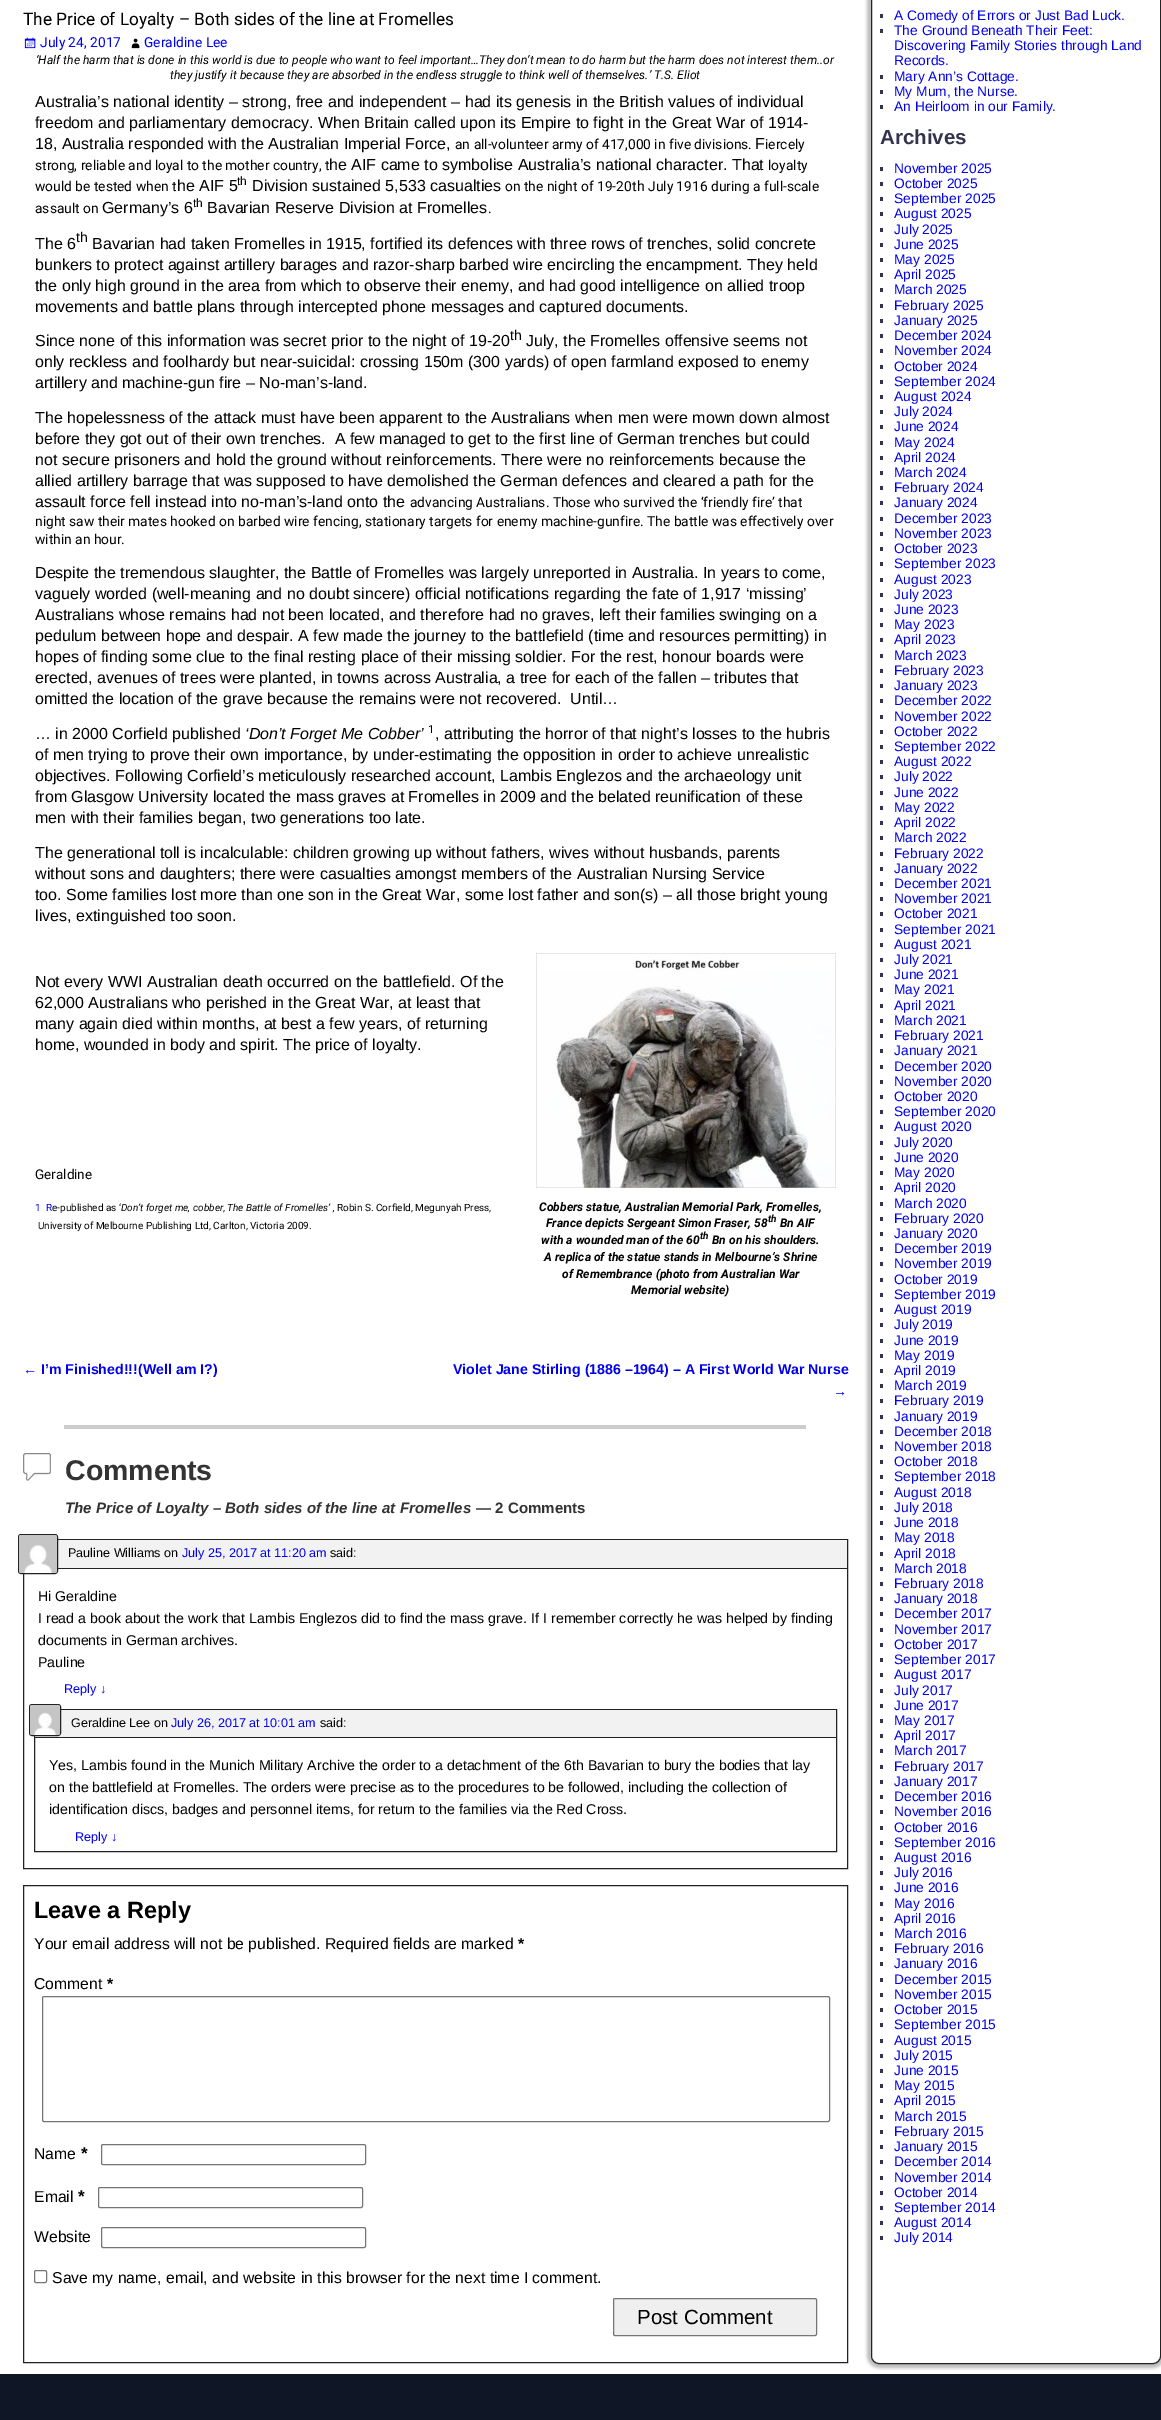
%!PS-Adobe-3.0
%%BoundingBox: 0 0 1161 2420
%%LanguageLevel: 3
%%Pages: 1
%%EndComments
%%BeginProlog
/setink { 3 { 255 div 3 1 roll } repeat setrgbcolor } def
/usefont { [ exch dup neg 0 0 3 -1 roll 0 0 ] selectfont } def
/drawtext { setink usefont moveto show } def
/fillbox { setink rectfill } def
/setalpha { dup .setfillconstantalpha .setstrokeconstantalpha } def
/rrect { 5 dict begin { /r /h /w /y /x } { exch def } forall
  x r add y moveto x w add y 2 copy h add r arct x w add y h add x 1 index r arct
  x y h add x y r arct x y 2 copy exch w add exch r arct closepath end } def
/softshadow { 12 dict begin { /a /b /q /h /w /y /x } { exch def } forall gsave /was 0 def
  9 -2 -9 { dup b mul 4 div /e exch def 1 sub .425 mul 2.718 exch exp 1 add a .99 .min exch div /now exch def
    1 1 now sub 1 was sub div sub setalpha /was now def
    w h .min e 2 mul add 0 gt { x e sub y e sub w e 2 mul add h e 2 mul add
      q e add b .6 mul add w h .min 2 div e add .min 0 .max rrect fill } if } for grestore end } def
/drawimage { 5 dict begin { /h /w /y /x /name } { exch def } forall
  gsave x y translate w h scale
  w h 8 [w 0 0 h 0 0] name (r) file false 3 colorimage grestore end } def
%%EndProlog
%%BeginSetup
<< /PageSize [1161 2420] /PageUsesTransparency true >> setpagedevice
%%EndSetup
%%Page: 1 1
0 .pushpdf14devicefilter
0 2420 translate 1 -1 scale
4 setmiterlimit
0 0 1161 2420 255 255 255 fillbox
(The Price of Loyalty – Both sides of the line at Fromelles) 23 25 /Roboto-Regular 17.25 0 0 0 drawtext
(assets/img1.rgb) 24 37 12 12 drawimage
(July 24, 2017) 40 47 /Roboto-Regular 13.78 0 0 238 drawtext
(assets/img2.rgb) 131 38 9 11 drawimage
(Geraldine Lee) 144 47 /Roboto-Regular 13.78 0 0 238 drawtext
(‘Half the harm that is done in this world is due to people who want to feel important…They don’t mean to do harm but the harm does not interest them..or) 36 64 /Roboto-Italic 12.05 0 0 0 drawtext
(they justify it because they are absorbed in the endless struggle to think well of themselves.’ T.S. Eliot) 170 79 /Roboto-Italic 12.05 0 0 0 drawtext
(Australia’s national identity – strong, free and independent – had its genesis in the British values of individual) 35 107 /LiberationSans-Regular 16 0 0 0 drawtext
(freedom and parliamentary democracy. When Britain called upon its Empire to fight in the Great War of 1914-) 35 128 /LiberationSans-Regular 16 0 0 0 drawtext
(18, Australia responded with the Australian Imperial Force,) 35 149 /LiberationSans-Regular 16 0 0 0 drawtext
(an all-volunteer army of 417,000 in five divisions.) 455 149 /Roboto-Regular 13.78 0 0 0 drawtext
(F) 755 149 /LiberationSans-Regular 16 0 0 0 drawtext
(iercely) 765 149 /Roboto-Regular 13.78 0 0 0 drawtext
(strong, reliable and loyal to the mother country, t) 35 170 /Roboto-Regular 13.78 0 0 0 drawtext
(he AIF came to symbolise Australia’s national character. That) 329 170 /LiberationSans-Regular 16 0 0 0 drawtext
(loyalty) 768 170 /Roboto-Regular 13.78 0 0 0 drawtext
(would be tested when t) 35 191 /Roboto-Regular 13.78 0 0 0 drawtext
(he AIF 5) 177 191 /LiberationSans-Regular 16 0 0 0 drawtext
(th) 237 185 /LiberationSans-Regular 12 0 0 0 drawtext
(Division sustained 5,533 casualties) 252 191 /LiberationSans-Regular 16 0 0 0 drawtext
(on the night of 19-20) 505 191 /Roboto-Regular 13.78 0 0 0 drawtext
(th) 632 191 /Roboto-Regular 14.18 0 0 0 drawtext
(July 1916 during a full-scale) 648 191 /Roboto-Regular 13.78 0 0 0 drawtext
(assault on) 35 213 /Roboto-Regular 13.78 0 0 0 drawtext
(Germany’s 6) 102 213 /LiberationSans-Regular 16 0 0 0 drawtext
(th) 193 207 /LiberationSans-Regular 12 0 0 0 drawtext
(Bavarian Reserve Division at Fromelles) 207 213 /LiberationSans-Regular 16 0 0 0 drawtext
(.) 488 213 /Roboto-Regular 13.78 0 0 0 drawtext
(The 6) 35 249 /LiberationSans-Regular 16 0 0 0 drawtext
(th) 76 242 /LiberationSans-Regular 14 0 0 0 drawtext
(Bavarian had taken Fromelles in 1915, fortified its defences with three rows of trenches, solid concrete) 92 249 /LiberationSans-Regular 16 0 0 0 drawtext
(bunkers to protect against artillery barages and razor-sharp barbed wire encircling the encampment. They held) 35 270 /LiberationSans-Regular 16 0 0 0 drawtext
(the only high ground in the area from which to observe their enemy, and had good intelligence on allied troop) 35 291 /LiberationSans-Regular 16 0 0 0 drawtext
(movements and battle plans through intercepted phone messages and captured documents.) 35 312 /LiberationSans-Regular 16 0 0 0 drawtext
(Since none of this information was secret prior to the night of 19-20) 35 346 /LiberationSans-Regular 16 0 0 0 drawtext
(th) 510 340 /LiberationSans-Regular 14 0 0 0 drawtext
(July, the Fromelles offensive seems not) 526 346 /LiberationSans-Regular 16 0 0 0 drawtext
(only reckless and foolhardy but near-suicidal: crossing 150m \(300 yards\) of open farmland exposed to enemy) 35 367 /LiberationSans-Regular 16 0 0 0 drawtext
(artillery and machine-gun fire – No-man’s-land.) 35 388 /LiberationSans-Regular 16 0 0 0 drawtext
(The hopelessness of the attack must have been apparent to the Australians when men were mown down almost) 35 423 /LiberationSans-Regular 16 0 0 0 drawtext
(before they got out of their own trenches.  A few managed to get to the first line of German trenches but could) 35 444 /LiberationSans-Regular 16 0 0 0 drawtext
(not secure prisoners and hold the ground without reinforcements. There were no reinforcements because the) 35 465 /LiberationSans-Regular 16 0 0 0 drawtext
(allied artillery barrage that was supposed to have demolished the German defences and cleared a path for the) 35 486 /LiberationSans-Regular 16 0 0 0 drawtext
(assault force fell instead into no-man’s-land onto the) 35 507 /LiberationSans-Regular 16 0 0 0 drawtext
(advancing Australians. Those who survived the ‘friendly fire’ that) 410 507 /Roboto-Regular 13.78 0 0 0 drawtext
(night saw their mates hooked on barbed wire fencing, stationary targets for enemy machine-gunfire. The battle was effectively over) 35 526 /Roboto-Regular 13.78 0 0 0 drawtext
(within an hour.) 35 544 /Roboto-Regular 13.78 0 0 0 drawtext
(Despite the tremendous slaughter, the Battle of Fromelles was largely unreported in Australia. In years to come,) 35 578 /LiberationSans-Regular 16 0 0 0 drawtext
(vaguely worded \(well-meaning and no doubt sincere\) official notifications regarding the fate of 1,917 ‘missing’) 35 599 /LiberationSans-Regular 16 0 0 0 drawtext
(Australians whose remains had not been located, and therefore had no graves, left their families swinging on a) 35 620 /LiberationSans-Regular 16 0 0 0 drawtext
(pedulum between hope and despair. A few made the journey to the battlefield \(time and resources permitting\) in) 35 641 /LiberationSans-Regular 16 0 0 0 drawtext
(hopes of finding some clue to the final resting place of their missing soldier. For the rest, honour boards were) 35 662 /LiberationSans-Regular 16 0 0 0 drawtext
(erected, avenues of trees were planted, in towns across Australia, a tree for each of the fallen – tributes that) 35 683 /LiberationSans-Regular 16 0 0 0 drawtext
(omitted the location of the grave because the remains were not recovered.  Until…) 35 704 /LiberationSans-Regular 16 0 0 0 drawtext
(… in 2000 Corfield published) 35 739 /LiberationSans-Regular 16 0 0 0 drawtext
(‘Don’t Forget Me Cobber’) 245 739 /LiberationSans-Italic 16 0 0 0 drawtext
(1) 428 733 /Roboto-Regular 11 0 0 0 drawtext
(, attributing the horror of that night’s losses to the hubris) 435 739 /LiberationSans-Regular 16 0 0 0 drawtext
(of men trying to prove their own importance, by under-estimating the opposition in order to achieve unrealistic) 35 760 /LiberationSans-Regular 16 0 0 0 drawtext
(objectives. Following Corfield’s meticulously researched account, Lambis Englezos and the archaeology unit) 35 781 /LiberationSans-Regular 16 0 0 0 drawtext
(from Glasgow University located the mass graves at Fromelles in 2009 and the belated reunification of these) 35 802 /LiberationSans-Regular 16 0 0 0 drawtext
(men with their families began, two generations too late.) 35 823 /LiberationSans-Regular 16 0 0 0 drawtext
(The generational toll is incalculable: children growing up without fathers, wives without husbands, parents) 35 858 /LiberationSans-Regular 16 0 0 0 drawtext
(without sons and daughters; there were casualties amongst members of the Australian Nursing Service) 35 879 /LiberationSans-Regular 16 0 0 0 drawtext
(too. Some families lost more than one son in the Great War, some lost father and son\(s\) – all those bright young) 35 900 /LiberationSans-Regular 16 0 0 0 drawtext
(lives, extinguished too soon.) 35 921 /LiberationSans-Regular 16 0 0 0 drawtext
(Not every WWI Australian death occurred on the battlefield. Of the) 35 987 /LiberationSans-Regular 16 0 0 0 drawtext
(62,000 Australians who perished in the Great War, at least that) 35 1008 /LiberationSans-Regular 16 0 0 0 drawtext
(many again died within months, at best a few years, of returning) 35 1029 /LiberationSans-Regular 16 0 0 0 drawtext
(home, wounded in body and spirit. The price of loyalty.) 35 1050 /LiberationSans-Regular 16 0 0 0 drawtext
(Geraldine) 35 1179 /Roboto-Regular 13.5 0 0 0 drawtext
(1  R) 35 1211 /Roboto-Regular 10 0 0 238 drawtext
(e-published as ‘) 52 1211 /Roboto-Regular 10 0 0 0 drawtext
(Don’t forget me, cobber) 121 1211 /Roboto-Italic 10 0 0 0 drawtext
(The Battle of Fromelles’ ,) 227 1211 /Roboto-Italic 10 0 0 0 drawtext
(Robin S. Corfield, Megunyah Press,) 337 1211 /Roboto-Regular 10 0 0 0 drawtext
(,) 223 1211 /Roboto-Regular 10 0 0 0 drawtext
(University of Melbourne Publishing Ltd, Carlton, Victoria 2009.) 38 1229 /Roboto-Regular 10 0 0 0 drawtext
(assets/img3.rgb) 536 953 300 235 drawimage
(Cobbers statue, Australian Memorial Park, Fromelles,) 539 1211 /Roboto-BoldItalic 12 0 0 0 drawtext
(France depicts Sergeant Simon Fraser, 58) 546 1227 /Roboto-BoldItalic 12 0 0 0 drawtext
(th) 768 1222 /Roboto-BoldItalic 10 0 0 0 drawtext
(Bn AIF) 780 1227 /Roboto-BoldItalic 12 0 0 0 drawtext
(with a wounded man of the 60) 541 1244 /Roboto-BoldItalic 12 0 0 0 drawtext
(th) 700 1239 /Roboto-BoldItalic 10 0 0 0 drawtext
(Bn on his shoulders.) 712 1244 /Roboto-BoldItalic 12 0 0 0 drawtext
(A replica of the statue stands in Melbourne’s Shrine) 544 1261 /Roboto-BoldItalic 12 0 0 0 drawtext
(of Remembrance \(photo from Australian War) 562 1278 /Roboto-BoldItalic 12 0 0 0 drawtext
(Memorial website\)) 631 1294 /Roboto-BoldItalic 12 0 0 0 drawtext
(←) 23 1374 /LiberationSans-Regular 14.18 0 0 238 drawtext
(I’m Finished!!!\(Well am I?\)) 41 1374 /LiberationSans-Bold 14.18 0 0 238 drawtext
(Violet Jane Stirling \(1886 –1964\) – A First World War Nurse) 453 1374 /LiberationSans-Bold 14.18 0 0 238 drawtext
(→) 833 1396 /LiberationSans-Regular 14.18 0 0 238 drawtext
64 1425 742 4 204 204 204 fillbox
(assets/img4.rgb) 23 1453 28 28 drawimage
(Comments) 65 1480 /LiberationSans-Bold 28.5 51 51 51 drawtext
(The Price of Loyalty – Both sides of the line at Fromelles) 65 1513 /LiberationSans-BoldItalic 15.1 51 51 51 drawtext
(— 2 Comments) 476 1513 /LiberationSans-Bold 15.1 51 51 51 drawtext
34 34 34 setink
23.5 1539.5 824 329 rectstroke
58 1540 789 28 242 242 242 fillbox
58 1568 789 1 34 34 34 fillbox
18.5 1534.5 39 39 2.5 rrect stroke
(assets/img5.rgb) 19 1535 38 38 drawimage
(Pauline Williams on) 68 1557 /LiberationSans-Regular 12.6 0 0 0 drawtext
(July 25, 2017 at 11:20 am) 182 1557 /LiberationSans-Regular 12.6 0 0 238 drawtext
(said:) 330 1557 /LiberationSans-Regular 12.6 0 0 0 drawtext
(Hi Geraldine) 38 1601 /LiberationSans-Regular 14.18 0 0 0 drawtext
(I read a book about the work that Lambis Englezos did to find the mass grave. If I remember correctly he was helped by finding) 38 1623 /LiberationSans-Regular 14.18 0 0 0 drawtext
(documents in German archives.) 38 1645 /LiberationSans-Regular 14.18 0 0 0 drawtext
(Pauline) 38 1667 /LiberationSans-Regular 14.18 0 0 0 drawtext
(Reply ↓) 64 1693 /LiberationSans-Regular 12.6 0 0 238 drawtext
34 34 34 setink
34.5 1709.5 802 142 rectstroke
35 1710 801 27 242 242 242 fillbox
35 1737 801 1 34 34 34 fillbox
29.5 1704.5 31 31 2.5 rrect stroke
(assets/img6.rgb) 30 1705 30 30 drawimage
(Geraldine Lee on) 71 1727 /LiberationSans-Regular 12.6 0 0 0 drawtext
(July 26, 2017 at 10:01 am) 171 1727 /LiberationSans-Regular 12.6 0 0 238 drawtext
(said:) 320 1727 /LiberationSans-Regular 12.6 0 0 0 drawtext
(Yes, Lambis found in the Munich Military Archive the order to a detachment of the 6th Bavarian to bury the bodies that lay) 49 1770 /LiberationSans-Regular 14.18 0 0 0 drawtext
(on the battlefield at Fromelles. The orders were precise as to the procedures to be followed, including the collection of) 49 1792 /LiberationSans-Regular 14.18 0 0 0 drawtext
(identification discs, badges and personnel items, for return to the families via the Red Cross.) 49 1814 /LiberationSans-Regular 14.18 0 0 0 drawtext
(Reply ↓) 75 1841 /LiberationSans-Regular 12.6 0 0 238 drawtext
34 34 34 setink
23.5 1885.5 824 477 rectstroke
(Leave a Reply) 34 1918 /LiberationSans-Bold 23.5 0 0 0 drawtext
(Your email address will not be published. Required fields are marked) 34 1949 /LiberationSans-Regular 15.75 0 0 0 drawtext
(*) 518 1949 /LiberationSans-Bold 15.75 0 0 0 drawtext
(Comment) 34 1989 /LiberationSans-Regular 15.75 0 0 0 drawtext
(*) 107 1989 /LiberationSans-Bold 15.75 0 0 0 drawtext
118 118 118 setink
42.5 1996.5 787 125 1.5 rrect stroke
(Name) 34 2159 /LiberationSans-Regular 15.75 0 0 0 drawtext
(*) 81 2159 /LiberationSans-Bold 17 0 0 0 drawtext
118 118 118 setink
101.5 2144.5 264 20 1.5 rrect stroke
(Email) 34 2202 /LiberationSans-Regular 15.75 0 0 0 drawtext
(*) 78 2202 /LiberationSans-Bold 17 0 0 0 drawtext
118 118 118 setink
98.5 2187.5 264 20 1.5 rrect stroke
(Website) 34 2242 /LiberationSans-Regular 15.75 0 0 0 drawtext
118 118 118 setink
101.5 2227.5 264 20 1.5 rrect stroke
34.5 2270.5 12 12 1.5 rrect stroke
(Save my name, email, and website in this browser for the next time I comment.) 52 2283 /LiberationSans-Regular 15.75 0 0 0 drawtext
239 239 239 setink
613.5 2298.5 203 37 1.5 rrect gsave fill grestore
118 118 118 setink
stroke
(Post Comment) 637 2324 /LiberationSans-Regular 20.5 0 0 0 drawtext
867 -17 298 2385 12 1.5 0.25 softshadow
255 255 255 setink
871.5 -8.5 289 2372 7.5 rrect gsave fill grestore
34 34 34 setink
stroke
880 14 3 4 51 51 78 fillbox
(A Comedy of Errors or Just Bad Luck.) 894 20 /LiberationSans-Regular 13.78 0 0 238 drawtext
880 29 3 4 51 51 78 fillbox
(The Ground Beneath Their Feet:) 894 35 /LiberationSans-Regular 13.78 0 0 238 drawtext
(Discovering Family Stories through Land) 894 50 /LiberationSans-Regular 13.78 0 0 238 drawtext
(Records.) 894 65 /LiberationSans-Regular 13.78 0 0 238 drawtext
880 75 3 4 51 51 78 fillbox
(Mary Ann’s Cottage.) 894 81 /LiberationSans-Regular 13.78 0 0 238 drawtext
880 90 3 4 51 51 78 fillbox
(My Mum, the Nurse.) 894 96 /LiberationSans-Regular 13.78 0 0 238 drawtext
880 105 3 4 51 51 78 fillbox
(An Heirloom in our Family.) 894 111 /LiberationSans-Regular 13.78 0 0 238 drawtext
(Archives) 880 144 /LiberationSans-Bold 20.5 51 51 78 drawtext
880 167 3 4 51 51 78 fillbox
(November 2025) 894 173 /LiberationSans-Regular 13.78 0 0 238 drawtext
880 182 3 4 51 51 78 fillbox
(October 2025) 894 188 /LiberationSans-Regular 13.78 0 0 238 drawtext
880 197 3 4 51 51 78 fillbox
(September 2025) 894 203 /LiberationSans-Regular 13.78 0 0 238 drawtext
880 212 3 4 51 51 78 fillbox
(August 2025) 894 218 /LiberationSans-Regular 13.78 0 0 238 drawtext
880 228 3 4 51 51 78 fillbox
(July 2025) 894 234 /LiberationSans-Regular 13.78 0 0 238 drawtext
880 243 3 4 51 51 78 fillbox
(June 2025) 894 249 /LiberationSans-Regular 13.78 0 0 238 drawtext
880 258 3 4 51 51 78 fillbox
(May 2025) 894 264 /LiberationSans-Regular 13.78 0 0 238 drawtext
880 273 3 4 51 51 78 fillbox
(April 2025) 894 279 /LiberationSans-Regular 13.78 0 0 238 drawtext
880 288 3 4 51 51 78 fillbox
(March 2025) 894 294 /LiberationSans-Regular 13.78 0 0 238 drawtext
880 304 3 4 51 51 78 fillbox
(February 2025) 894 310 /LiberationSans-Regular 13.78 0 0 238 drawtext
880 319 3 4 51 51 78 fillbox
(January 2025) 894 325 /LiberationSans-Regular 13.78 0 0 238 drawtext
880 334 3 4 51 51 78 fillbox
(December 2024) 894 340 /LiberationSans-Regular 13.78 0 0 238 drawtext
880 349 3 4 51 51 78 fillbox
(November 2024) 894 355 /LiberationSans-Regular 13.78 0 0 238 drawtext
880 365 3 4 51 51 78 fillbox
(October 2024) 894 371 /LiberationSans-Regular 13.78 0 0 238 drawtext
880 380 3 4 51 51 78 fillbox
(September 2024) 894 386 /LiberationSans-Regular 13.78 0 0 238 drawtext
880 395 3 4 51 51 78 fillbox
(August 2024) 894 401 /LiberationSans-Regular 13.78 0 0 238 drawtext
880 410 3 4 51 51 78 fillbox
(July 2024) 894 416 /LiberationSans-Regular 13.78 0 0 238 drawtext
880 425 3 4 51 51 78 fillbox
(June 2024) 894 431 /LiberationSans-Regular 13.78 0 0 238 drawtext
880 441 3 4 51 51 78 fillbox
(May 2024) 894 447 /LiberationSans-Regular 13.78 0 0 238 drawtext
880 456 3 4 51 51 78 fillbox
(April 2024) 894 462 /LiberationSans-Regular 13.78 0 0 238 drawtext
880 471 3 4 51 51 78 fillbox
(March 2024) 894 477 /LiberationSans-Regular 13.78 0 0 238 drawtext
880 486 3 4 51 51 78 fillbox
(February 2024) 894 492 /LiberationSans-Regular 13.78 0 0 238 drawtext
880 501 3 4 51 51 78 fillbox
(January 2024) 894 507 /LiberationSans-Regular 13.78 0 0 238 drawtext
880 517 3 4 51 51 78 fillbox
(December 2023) 894 523 /LiberationSans-Regular 13.78 0 0 238 drawtext
880 532 3 4 51 51 78 fillbox
(November 2023) 894 538 /LiberationSans-Regular 13.78 0 0 238 drawtext
880 547 3 4 51 51 78 fillbox
(October 2023) 894 553 /LiberationSans-Regular 13.78 0 0 238 drawtext
880 562 3 4 51 51 78 fillbox
(September 2023) 894 568 /LiberationSans-Regular 13.78 0 0 238 drawtext
880 578 3 4 51 51 78 fillbox
(August 2023) 894 584 /LiberationSans-Regular 13.78 0 0 238 drawtext
880 593 3 4 51 51 78 fillbox
(July 2023) 894 599 /LiberationSans-Regular 13.78 0 0 238 drawtext
880 608 3 4 51 51 78 fillbox
(June 2023) 894 614 /LiberationSans-Regular 13.78 0 0 238 drawtext
880 623 3 4 51 51 78 fillbox
(May 2023) 894 629 /LiberationSans-Regular 13.78 0 0 238 drawtext
880 638 3 4 51 51 78 fillbox
(April 2023) 894 644 /LiberationSans-Regular 13.78 0 0 238 drawtext
880 654 3 4 51 51 78 fillbox
(March 2023) 894 660 /LiberationSans-Regular 13.78 0 0 238 drawtext
880 669 3 4 51 51 78 fillbox
(February 2023) 894 675 /LiberationSans-Regular 13.78 0 0 238 drawtext
880 684 3 4 51 51 78 fillbox
(January 2023) 894 690 /LiberationSans-Regular 13.78 0 0 238 drawtext
880 699 3 4 51 51 78 fillbox
(December 2022) 894 705 /LiberationSans-Regular 13.78 0 0 238 drawtext
880 715 3 4 51 51 78 fillbox
(November 2022) 894 721 /LiberationSans-Regular 13.78 0 0 238 drawtext
880 730 3 4 51 51 78 fillbox
(October 2022) 894 736 /LiberationSans-Regular 13.78 0 0 238 drawtext
880 745 3 4 51 51 78 fillbox
(September 2022) 894 751 /LiberationSans-Regular 13.78 0 0 238 drawtext
880 760 3 4 51 51 78 fillbox
(August 2022) 894 766 /LiberationSans-Regular 13.78 0 0 238 drawtext
880 775 3 4 51 51 78 fillbox
(July 2022) 894 781 /LiberationSans-Regular 13.78 0 0 238 drawtext
880 791 3 4 51 51 78 fillbox
(June 2022) 894 797 /LiberationSans-Regular 13.78 0 0 238 drawtext
880 806 3 4 51 51 78 fillbox
(May 2022) 894 812 /LiberationSans-Regular 13.78 0 0 238 drawtext
880 821 3 4 51 51 78 fillbox
(April 2022) 894 827 /LiberationSans-Regular 13.78 0 0 238 drawtext
880 836 3 4 51 51 78 fillbox
(March 2022) 894 842 /LiberationSans-Regular 13.78 0 0 238 drawtext
880 852 3 4 51 51 78 fillbox
(February 2022) 894 858 /LiberationSans-Regular 13.78 0 0 238 drawtext
880 867 3 4 51 51 78 fillbox
(January 2022) 894 873 /LiberationSans-Regular 13.78 0 0 238 drawtext
880 882 3 4 51 51 78 fillbox
(December 2021) 894 888 /LiberationSans-Regular 13.78 0 0 238 drawtext
880 897 3 4 51 51 78 fillbox
(November 2021) 894 903 /LiberationSans-Regular 13.78 0 0 238 drawtext
880 912 3 4 51 51 78 fillbox
(October 2021) 894 918 /LiberationSans-Regular 13.78 0 0 238 drawtext
880 928 3 4 51 51 78 fillbox
(September 2021) 894 934 /LiberationSans-Regular 13.78 0 0 238 drawtext
880 943 3 4 51 51 78 fillbox
(August 2021) 894 949 /LiberationSans-Regular 13.78 0 0 238 drawtext
880 958 3 4 51 51 78 fillbox
(July 2021) 894 964 /LiberationSans-Regular 13.78 0 0 238 drawtext
880 973 3 4 51 51 78 fillbox
(June 2021) 894 979 /LiberationSans-Regular 13.78 0 0 238 drawtext
880 988 3 4 51 51 78 fillbox
(May 2021) 894 994 /LiberationSans-Regular 13.78 0 0 238 drawtext
880 1004 3 4 51 51 78 fillbox
(April 2021) 894 1010 /LiberationSans-Regular 13.78 0 0 238 drawtext
880 1019 3 4 51 51 78 fillbox
(March 2021) 894 1025 /LiberationSans-Regular 13.78 0 0 238 drawtext
880 1034 3 4 51 51 78 fillbox
(February 2021) 894 1040 /LiberationSans-Regular 13.78 0 0 238 drawtext
880 1049 3 4 51 51 78 fillbox
(January 2021) 894 1055 /LiberationSans-Regular 13.78 0 0 238 drawtext
880 1065 3 4 51 51 78 fillbox
(December 2020) 894 1071 /LiberationSans-Regular 13.78 0 0 238 drawtext
880 1080 3 4 51 51 78 fillbox
(November 2020) 894 1086 /LiberationSans-Regular 13.78 0 0 238 drawtext
880 1095 3 4 51 51 78 fillbox
(October 2020) 894 1101 /LiberationSans-Regular 13.78 0 0 238 drawtext
880 1110 3 4 51 51 78 fillbox
(September 2020) 894 1116 /LiberationSans-Regular 13.78 0 0 238 drawtext
880 1125 3 4 51 51 78 fillbox
(August 2020) 894 1131 /LiberationSans-Regular 13.78 0 0 238 drawtext
880 1141 3 4 51 51 78 fillbox
(July 2020) 894 1147 /LiberationSans-Regular 13.78 0 0 238 drawtext
880 1156 3 4 51 51 78 fillbox
(June 2020) 894 1162 /LiberationSans-Regular 13.78 0 0 238 drawtext
880 1171 3 4 51 51 78 fillbox
(May 2020) 894 1177 /LiberationSans-Regular 13.78 0 0 238 drawtext
880 1186 3 4 51 51 78 fillbox
(April 2020) 894 1192 /LiberationSans-Regular 13.78 0 0 238 drawtext
880 1202 3 4 51 51 78 fillbox
(March 2020) 894 1208 /LiberationSans-Regular 13.78 0 0 238 drawtext
880 1217 3 4 51 51 78 fillbox
(February 2020) 894 1223 /LiberationSans-Regular 13.78 0 0 238 drawtext
880 1232 3 4 51 51 78 fillbox
(January 2020) 894 1238 /LiberationSans-Regular 13.78 0 0 238 drawtext
880 1247 3 4 51 51 78 fillbox
(December 2019) 894 1253 /LiberationSans-Regular 13.78 0 0 238 drawtext
880 1262 3 4 51 51 78 fillbox
(November 2019) 894 1268 /LiberationSans-Regular 13.78 0 0 238 drawtext
880 1278 3 4 51 51 78 fillbox
(October 2019) 894 1284 /LiberationSans-Regular 13.78 0 0 238 drawtext
880 1293 3 4 51 51 78 fillbox
(September 2019) 894 1299 /LiberationSans-Regular 13.78 0 0 238 drawtext
880 1308 3 4 51 51 78 fillbox
(August 2019) 894 1314 /LiberationSans-Regular 13.78 0 0 238 drawtext
880 1323 3 4 51 51 78 fillbox
(July 2019) 894 1329 /LiberationSans-Regular 13.78 0 0 238 drawtext
880 1339 3 4 51 51 78 fillbox
(June 2019) 894 1345 /LiberationSans-Regular 13.78 0 0 238 drawtext
880 1354 3 4 51 51 78 fillbox
(May 2019) 894 1360 /LiberationSans-Regular 13.78 0 0 238 drawtext
880 1369 3 4 51 51 78 fillbox
(April 2019) 894 1375 /LiberationSans-Regular 13.78 0 0 238 drawtext
880 1384 3 4 51 51 78 fillbox
(March 2019) 894 1390 /LiberationSans-Regular 13.78 0 0 238 drawtext
880 1399 3 4 51 51 78 fillbox
(February 2019) 894 1405 /LiberationSans-Regular 13.78 0 0 238 drawtext
880 1415 3 4 51 51 78 fillbox
(January 2019) 894 1421 /LiberationSans-Regular 13.78 0 0 238 drawtext
880 1430 3 4 51 51 78 fillbox
(December 2018) 894 1436 /LiberationSans-Regular 13.78 0 0 238 drawtext
880 1445 3 4 51 51 78 fillbox
(November 2018) 894 1451 /LiberationSans-Regular 13.78 0 0 238 drawtext
880 1460 3 4 51 51 78 fillbox
(October 2018) 894 1466 /LiberationSans-Regular 13.78 0 0 238 drawtext
880 1475 3 4 51 51 78 fillbox
(September 2018) 894 1481 /LiberationSans-Regular 13.78 0 0 238 drawtext
880 1491 3 4 51 51 78 fillbox
(August 2018) 894 1497 /LiberationSans-Regular 13.78 0 0 238 drawtext
880 1506 3 4 51 51 78 fillbox
(July 2018) 894 1512 /LiberationSans-Regular 13.78 0 0 238 drawtext
880 1521 3 4 51 51 78 fillbox
(June 2018) 894 1527 /LiberationSans-Regular 13.78 0 0 238 drawtext
880 1536 3 4 51 51 78 fillbox
(May 2018) 894 1542 /LiberationSans-Regular 13.78 0 0 238 drawtext
880 1552 3 4 51 51 78 fillbox
(April 2018) 894 1558 /LiberationSans-Regular 13.78 0 0 238 drawtext
880 1567 3 4 51 51 78 fillbox
(March 2018) 894 1573 /LiberationSans-Regular 13.78 0 0 238 drawtext
880 1582 3 4 51 51 78 fillbox
(February 2018) 894 1588 /LiberationSans-Regular 13.78 0 0 238 drawtext
880 1597 3 4 51 51 78 fillbox
(January 2018) 894 1603 /LiberationSans-Regular 13.78 0 0 238 drawtext
880 1612 3 4 51 51 78 fillbox
(December 2017) 894 1618 /LiberationSans-Regular 13.78 0 0 238 drawtext
880 1628 3 4 51 51 78 fillbox
(November 2017) 894 1634 /LiberationSans-Regular 13.78 0 0 238 drawtext
880 1643 3 4 51 51 78 fillbox
(October 2017) 894 1649 /LiberationSans-Regular 13.78 0 0 238 drawtext
880 1658 3 4 51 51 78 fillbox
(September 2017) 894 1664 /LiberationSans-Regular 13.78 0 0 238 drawtext
880 1673 3 4 51 51 78 fillbox
(August 2017) 894 1679 /LiberationSans-Regular 13.78 0 0 238 drawtext
880 1689 3 4 51 51 78 fillbox
(July 2017) 894 1695 /LiberationSans-Regular 13.78 0 0 238 drawtext
880 1704 3 4 51 51 78 fillbox
(June 2017) 894 1710 /LiberationSans-Regular 13.78 0 0 238 drawtext
880 1719 3 4 51 51 78 fillbox
(May 2017) 894 1725 /LiberationSans-Regular 13.78 0 0 238 drawtext
880 1734 3 4 51 51 78 fillbox
(April 2017) 894 1740 /LiberationSans-Regular 13.78 0 0 238 drawtext
880 1749 3 4 51 51 78 fillbox
(March 2017) 894 1755 /LiberationSans-Regular 13.78 0 0 238 drawtext
880 1765 3 4 51 51 78 fillbox
(February 2017) 894 1771 /LiberationSans-Regular 13.78 0 0 238 drawtext
880 1780 3 4 51 51 78 fillbox
(January 2017) 894 1786 /LiberationSans-Regular 13.78 0 0 238 drawtext
880 1795 3 4 51 51 78 fillbox
(December 2016) 894 1801 /LiberationSans-Regular 13.78 0 0 238 drawtext
880 1810 3 4 51 51 78 fillbox
(November 2016) 894 1816 /LiberationSans-Regular 13.78 0 0 238 drawtext
880 1826 3 4 51 51 78 fillbox
(October 2016) 894 1832 /LiberationSans-Regular 13.78 0 0 238 drawtext
880 1841 3 4 51 51 78 fillbox
(September 2016) 894 1847 /LiberationSans-Regular 13.78 0 0 238 drawtext
880 1856 3 4 51 51 78 fillbox
(August 2016) 894 1862 /LiberationSans-Regular 13.78 0 0 238 drawtext
880 1871 3 4 51 51 78 fillbox
(July 2016) 894 1877 /LiberationSans-Regular 13.78 0 0 238 drawtext
880 1886 3 4 51 51 78 fillbox
(June 2016) 894 1892 /LiberationSans-Regular 13.78 0 0 238 drawtext
880 1902 3 4 51 51 78 fillbox
(May 2016) 894 1908 /LiberationSans-Regular 13.78 0 0 238 drawtext
880 1917 3 4 51 51 78 fillbox
(April 2016) 894 1923 /LiberationSans-Regular 13.78 0 0 238 drawtext
880 1932 3 4 51 51 78 fillbox
(March 2016) 894 1938 /LiberationSans-Regular 13.78 0 0 238 drawtext
880 1947 3 4 51 51 78 fillbox
(February 2016) 894 1953 /LiberationSans-Regular 13.78 0 0 238 drawtext
880 1962 3 4 51 51 78 fillbox
(January 2016) 894 1968 /LiberationSans-Regular 13.78 0 0 238 drawtext
880 1978 3 4 51 51 78 fillbox
(December 2015) 894 1984 /LiberationSans-Regular 13.78 0 0 238 drawtext
880 1993 3 4 51 51 78 fillbox
(November 2015) 894 1999 /LiberationSans-Regular 13.78 0 0 238 drawtext
880 2008 3 4 51 51 78 fillbox
(October 2015) 894 2014 /LiberationSans-Regular 13.78 0 0 238 drawtext
880 2023 3 4 51 51 78 fillbox
(September 2015) 894 2029 /LiberationSans-Regular 13.78 0 0 238 drawtext
880 2039 3 4 51 51 78 fillbox
(August 2015) 894 2045 /LiberationSans-Regular 13.78 0 0 238 drawtext
880 2054 3 4 51 51 78 fillbox
(July 2015) 894 2060 /LiberationSans-Regular 13.78 0 0 238 drawtext
880 2069 3 4 51 51 78 fillbox
(June 2015) 894 2075 /LiberationSans-Regular 13.78 0 0 238 drawtext
880 2084 3 4 51 51 78 fillbox
(May 2015) 894 2090 /LiberationSans-Regular 13.78 0 0 238 drawtext
880 2099 3 4 51 51 78 fillbox
(April 2015) 894 2105 /LiberationSans-Regular 13.78 0 0 238 drawtext
880 2115 3 4 51 51 78 fillbox
(March 2015) 894 2121 /LiberationSans-Regular 13.78 0 0 238 drawtext
880 2130 3 4 51 51 78 fillbox
(February 2015) 894 2136 /LiberationSans-Regular 13.78 0 0 238 drawtext
880 2145 3 4 51 51 78 fillbox
(January 2015) 894 2151 /LiberationSans-Regular 13.78 0 0 238 drawtext
880 2160 3 4 51 51 78 fillbox
(December 2014) 894 2166 /LiberationSans-Regular 13.78 0 0 238 drawtext
880 2176 3 4 51 51 78 fillbox
(November 2014) 894 2182 /LiberationSans-Regular 13.78 0 0 238 drawtext
880 2191 3 4 51 51 78 fillbox
(October 2014) 894 2197 /LiberationSans-Regular 13.78 0 0 238 drawtext
880 2206 3 4 51 51 78 fillbox
(September 2014) 894 2212 /LiberationSans-Regular 13.78 0 0 238 drawtext
880 2221 3 4 51 51 78 fillbox
(August 2014) 894 2227 /LiberationSans-Regular 13.78 0 0 238 drawtext
880 2236 3 4 51 51 78 fillbox
(July 2014) 894 2242 /LiberationSans-Regular 13.78 0 0 238 drawtext
0 2374 1161 46 15 22 38 fillbox
.poppdf14devicefilter showpage
%%EOF
